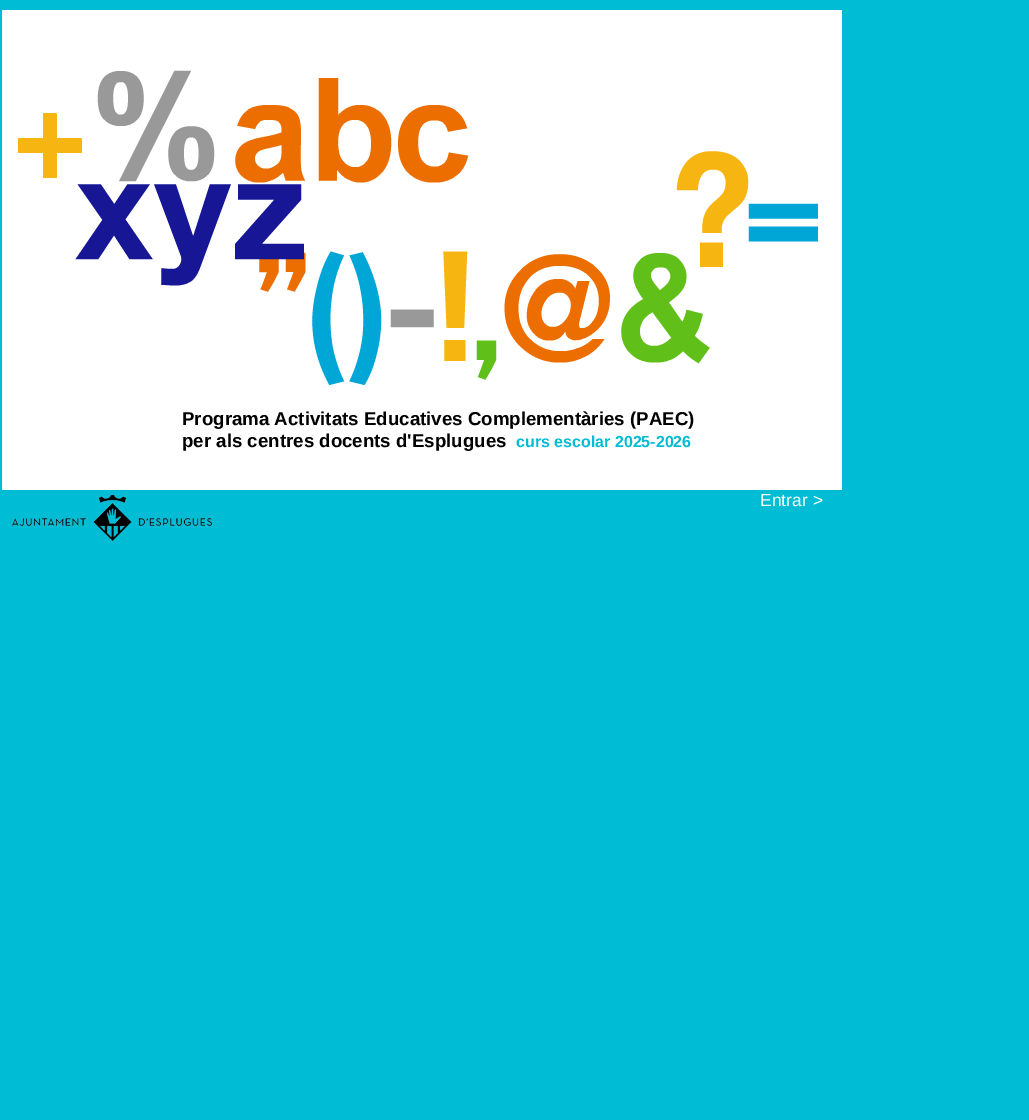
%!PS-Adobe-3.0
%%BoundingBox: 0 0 1029 1120
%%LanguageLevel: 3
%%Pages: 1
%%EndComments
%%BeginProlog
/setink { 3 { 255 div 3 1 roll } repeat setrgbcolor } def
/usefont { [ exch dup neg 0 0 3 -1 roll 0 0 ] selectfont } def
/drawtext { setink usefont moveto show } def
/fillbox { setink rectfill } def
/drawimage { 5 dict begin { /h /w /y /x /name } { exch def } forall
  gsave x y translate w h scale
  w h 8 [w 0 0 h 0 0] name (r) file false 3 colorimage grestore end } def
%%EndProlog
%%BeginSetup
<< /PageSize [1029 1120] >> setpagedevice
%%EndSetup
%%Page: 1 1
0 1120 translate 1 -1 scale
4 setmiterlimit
0 0 1029 1120 0 188 212 fillbox
2 10 840 480 255 255 255 fillbox
(assets/img1.rgb) 18 70 800 315 drawimage
(Programa Activitats Educatives Complementàries \(PAEC\)) 182 425 /LiberationSans-Bold 18.7 0 0 0 drawtext
(per als centres docents d'Esplugues) 182 447 /LiberationSans-Bold 18.7 0 0 0 drawtext
(curs escolar 2025-2026) 516 447 /LiberationSans-Bold 16 0 188 212 drawtext
(assets/img2.rgb) 12 495 200 46 drawimage
(Entrar >) 760 506 /LiberationSans-Regular 17.5 255 255 255 drawtext
showpage
%%EOF
